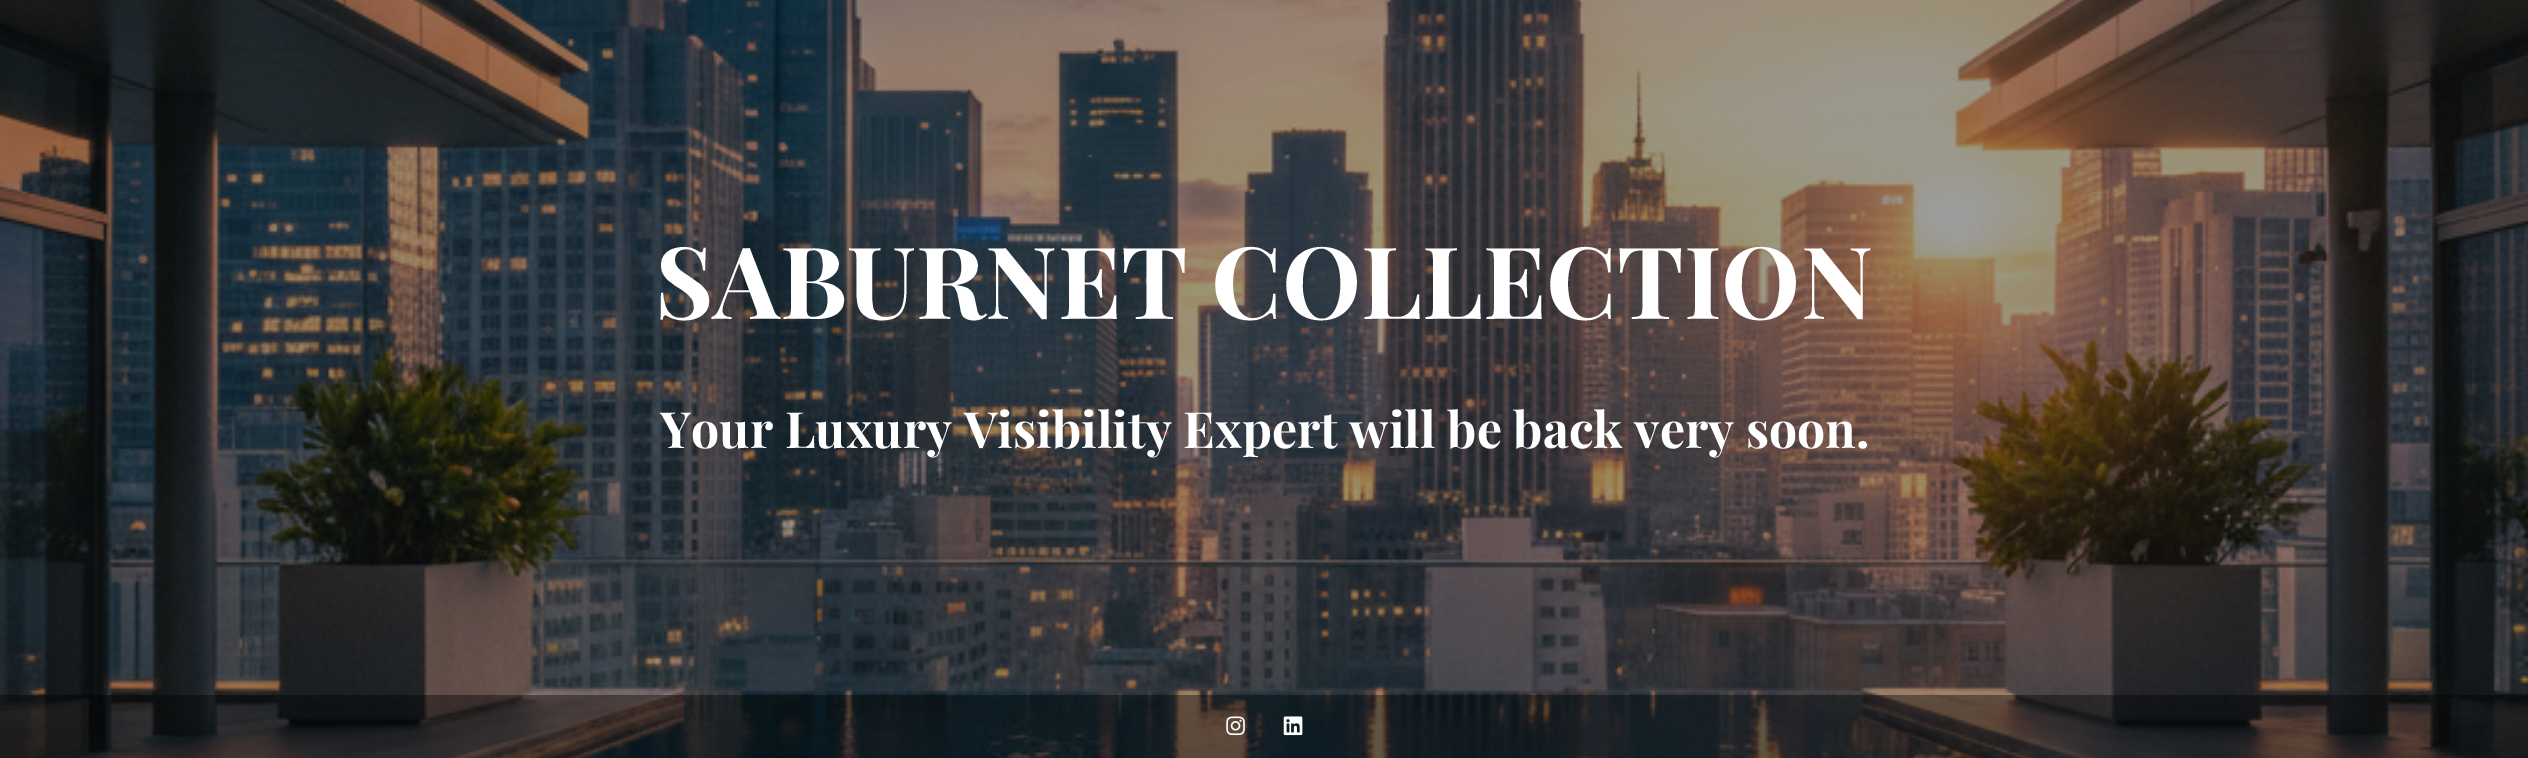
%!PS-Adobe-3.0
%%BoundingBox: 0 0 2528 758
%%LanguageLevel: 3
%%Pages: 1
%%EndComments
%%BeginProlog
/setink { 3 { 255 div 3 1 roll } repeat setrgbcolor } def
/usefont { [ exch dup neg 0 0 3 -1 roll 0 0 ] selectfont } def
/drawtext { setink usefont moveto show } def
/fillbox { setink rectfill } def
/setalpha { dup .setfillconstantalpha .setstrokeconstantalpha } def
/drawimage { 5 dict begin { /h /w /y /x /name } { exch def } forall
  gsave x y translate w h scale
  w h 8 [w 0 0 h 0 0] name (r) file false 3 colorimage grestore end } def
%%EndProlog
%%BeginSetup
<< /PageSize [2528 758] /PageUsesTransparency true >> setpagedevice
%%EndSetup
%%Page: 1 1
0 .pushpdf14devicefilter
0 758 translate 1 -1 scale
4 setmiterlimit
0 0 2528 758 255 255 255 fillbox
(assets/img1.rgb) 0 0 2528 758 drawimage
(SABURNET COLLECTION) 655 319 /PlayfairDisplay-Bold 100 255 255 255 drawtext
(Your Luxury Visibility Expert will be back very soon.) 660 448 /PlayfairDisplay-Bold 50 255 255 255 drawtext
0.4 setalpha
0 695 2528 63 0 0 0 fillbox
1 setalpha
(assets/img2.rgb) 1226 716 19 20 drawimage
(assets/img3.rgb) 1283 716 20 20 drawimage
.poppdf14devicefilter showpage
%%EOF
